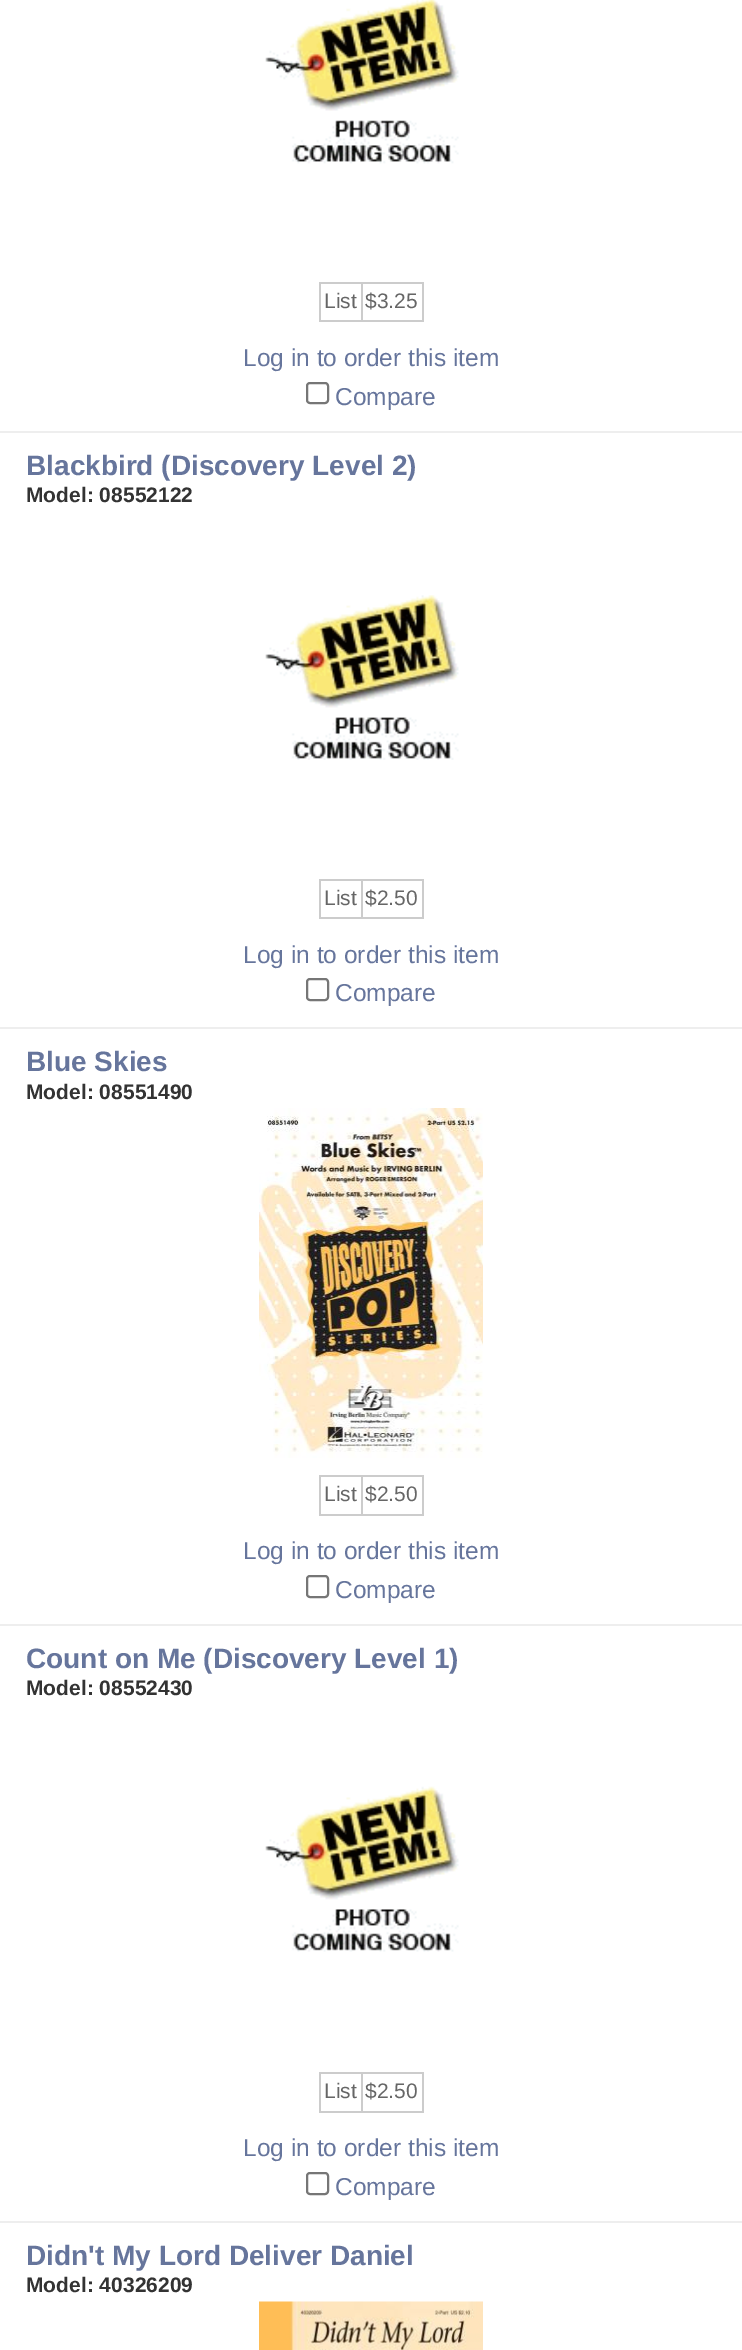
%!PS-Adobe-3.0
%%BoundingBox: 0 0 742 2350
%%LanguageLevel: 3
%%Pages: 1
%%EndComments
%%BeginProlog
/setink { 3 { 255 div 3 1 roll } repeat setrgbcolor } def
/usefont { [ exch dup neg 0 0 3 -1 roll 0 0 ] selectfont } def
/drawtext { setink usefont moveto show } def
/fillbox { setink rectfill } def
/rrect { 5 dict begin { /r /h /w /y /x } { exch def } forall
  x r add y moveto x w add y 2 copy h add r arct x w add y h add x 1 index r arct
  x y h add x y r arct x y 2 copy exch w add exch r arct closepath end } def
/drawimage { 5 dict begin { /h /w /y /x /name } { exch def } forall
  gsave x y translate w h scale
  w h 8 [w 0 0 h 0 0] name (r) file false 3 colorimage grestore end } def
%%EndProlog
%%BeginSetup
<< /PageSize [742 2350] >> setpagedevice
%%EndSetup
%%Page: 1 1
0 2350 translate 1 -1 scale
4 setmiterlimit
0 0 742 2350 255 255 255 fillbox
(assets/img1.rgb) 265 0 194 164 drawimage
361 282 63 2 204 204 204 fillbox
422 282 2 40 204 204 204 fillbox
361 320 63 2 204 204 204 fillbox
361 282 2 40 204 204 204 fillbox
319 282 43 2 204 204 204 fillbox
319 320 43 2 204 204 204 fillbox
319 282 2 40 204 204 204 fillbox
(List) 324 308 /LiberationSans-Regular 21 102 102 102 drawtext
($3.25) 365 308 /LiberationSans-Regular 21 102 102 102 drawtext
(Log in to order this item) 243 366 /LiberationSans-Regular 24.5 102 117 156 drawtext
118 118 118 setink
2 setlinewidth
307 383 21 20 3 rrect stroke
(Compare) 335 405 /LiberationSans-Regular 24.5 102 117 156 drawtext
0 431 742 2 238 238 238 fillbox
(Blackbird \(Discovery Level 2\)) 26 475 /LiberationSans-Bold 28 102 117 156 drawtext
(Model: 08552122) 26 502 /LiberationSans-Bold 21 51 51 51 drawtext
(assets/img2.rgb) 265 595 194 165 drawimage
361 879 63 2 204 204 204 fillbox
422 879 2 40 204 204 204 fillbox
361 917 63 2 204 204 204 fillbox
361 879 2 40 204 204 204 fillbox
319 879 43 2 204 204 204 fillbox
319 917 43 2 204 204 204 fillbox
319 879 2 40 204 204 204 fillbox
(List) 324 905 /LiberationSans-Regular 21 102 102 102 drawtext
($2.50) 365 905 /LiberationSans-Regular 21 102 102 102 drawtext
(Log in to order this item) 243 963 /LiberationSans-Regular 24.5 102 117 156 drawtext
118 118 118 setink
307 979 21 21 3 rrect stroke
(Compare) 335 1001 /LiberationSans-Regular 24.5 102 117 156 drawtext
0 1027 742 2 238 238 238 fillbox
(Blue Skies) 26 1071 /LiberationSans-Bold 28 102 117 156 drawtext
(Model: 08551490) 26 1099 /LiberationSans-Bold 21 51 51 51 drawtext
(assets/img3.rgb) 259 1108 224 350 drawimage
361 1475 63 2 204 204 204 fillbox
422 1475 2 41 204 204 204 fillbox
361 1514 63 2 204 204 204 fillbox
361 1475 2 41 204 204 204 fillbox
319 1475 43 2 204 204 204 fillbox
319 1514 43 2 204 204 204 fillbox
319 1475 2 41 204 204 204 fillbox
(List) 324 1501 /LiberationSans-Regular 21 102 102 102 drawtext
($2.50) 365 1501 /LiberationSans-Regular 21 102 102 102 drawtext
(Log in to order this item) 243 1559 /LiberationSans-Regular 24.5 102 117 156 drawtext
118 118 118 setink
307 1576 21 21 3 rrect stroke
(Compare) 335 1598 /LiberationSans-Regular 24.5 102 117 156 drawtext
0 1624 742 2 238 238 238 fillbox
(Count on Me \(Discovery Level 1\)) 26 1668 /LiberationSans-Bold 28 102 117 156 drawtext
(Model: 08552430) 26 1695 /LiberationSans-Bold 21 51 51 51 drawtext
(assets/img4.rgb) 265 1786 194 166 drawimage
361 2072 63 2 204 204 204 fillbox
422 2072 2 40 204 204 204 fillbox
361 2111 63 2 204 204 204 fillbox
361 2072 2 40 204 204 204 fillbox
319 2072 43 2 204 204 204 fillbox
319 2111 43 2 204 204 204 fillbox
319 2072 2 40 204 204 204 fillbox
(List) 324 2098 /LiberationSans-Regular 21 102 102 102 drawtext
($2.50) 365 2098 /LiberationSans-Regular 21 102 102 102 drawtext
(Log in to order this item) 243 2156 /LiberationSans-Regular 24.5 102 117 156 drawtext
118 118 118 setink
307 2173 21 21 3 rrect stroke
(Compare) 335 2195 /LiberationSans-Regular 24.5 102 117 156 drawtext
0 2221 742 2 238 238 238 fillbox
(Didn't My Lord Deliver Daniel) 26 2265 /LiberationSans-Bold 28 102 117 156 drawtext
(Model: 40326209) 26 2292 /LiberationSans-Bold 21 51 51 51 drawtext
(assets/img5.rgb) 259 2301 224 49 drawimage
showpage
%%EOF
